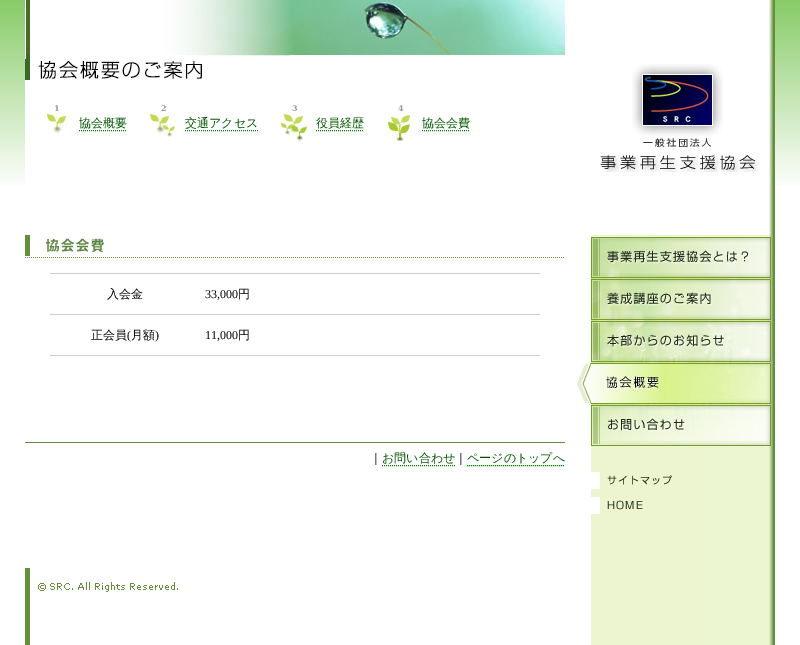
%!PS-Adobe-3.0
%%BoundingBox: 0 0 800 645
%%LanguageLevel: 3
%%Pages: 1
%%EndComments
%%BeginProlog
/setink { 3 { 255 div 3 1 roll } repeat setrgbcolor } def
/usefont { [ exch dup neg 0 0 3 -1 roll 0 0 ] selectfont } def
/drawtext { setink usefont moveto show } def
/fillbox { setink rectfill } def
/drawimage { 5 dict begin { /h /w /y /x /name } { exch def } forall
  gsave x y translate w h scale
  w h 8 [w 0 0 h 0 0] name (r) file false 3 colorimage grestore end } def
%%EndProlog
%%BeginSetup
<< /PageSize [800 645] >> setpagedevice
%%EndSetup
%%Page: 1 1
0 645 translate 1 -1 scale
4 setmiterlimit
0 0 800 645 255 255 255 fillbox
(assets/img1.rgb) 0 0 800 185 drawimage
25 0 550 185 255 255 255 fillbox
(assets/img2.rgb) 25 0 540 55 drawimage
(assets/img3.rgb) 25 55 265 25 drawimage
(assets/img4.rgb) 47 105 19 28 drawimage
(協会概要) 79 127 /WenQuanYiZenHei-Medium 12 0 87 0 drawtext
0 130 0 setink
[1 1] 0 setdash
79 130.5 moveto 127 130.5 lineto stroke
(assets/img5.rgb) 150 105 25 32 drawimage
(交通アクセス) 185 127 /WenQuanYiZenHei-Medium 12 0 87 0 drawtext
0 130 0 setink
185 130.5 moveto 258 130.5 lineto stroke
(assets/img6.rgb) 281 105 26 36 drawimage
(役員経歴) 316 127 /WenQuanYiZenHei-Medium 12 0 87 0 drawtext
0 130 0 setink
316 130.5 moveto 364 130.5 lineto stroke
(assets/img7.rgb) 388 105 22 36 drawimage
(協会会費) 422 127 /WenQuanYiZenHei-Medium 12 0 87 0 drawtext
0 130 0 setink
422 130.5 moveto 470 130.5 lineto stroke
(assets/img8.rgb) 575 0 200 235 drawimage
(assets/img9.rgb) 600 64 159 108 drawimage
(assets/img10.rgb) 25 235 79 21 drawimage
(assets/img11.rgb) 25 257 539 1 drawimage
50 273 490 1 204 204 204 fillbox
(入会金) 107 298 /WenQuanYiZenHei-Medium 12 0 0 0 drawtext
(33,000) 205 298 /LiberationSerif-Regular 12 0 0 0 drawtext
(円) 238 298 /WenQuanYiZenHei-Medium 12 0 0 0 drawtext
50 314 490 1 204 204 204 fillbox
(正会員) 91 339 /WenQuanYiZenHei-Medium 12 0 0 0 drawtext
(\() 127 339 /LiberationSerif-Regular 12 0 0 0 drawtext
(月額) 131 339 /WenQuanYiZenHei-Medium 12 0 0 0 drawtext
(\)) 155 339 /LiberationSerif-Regular 12 0 0 0 drawtext
(11,000) 205 339 /LiberationSerif-Regular 12 0 0 0 drawtext
(円) 238 339 /WenQuanYiZenHei-Medium 12 0 0 0 drawtext
50 355 490 1 204 204 204 fillbox
25 442 540 1 98 144 56 fillbox
(｜) 370 462 /WenQuanYiZenHei-Medium 12 0 0 0 drawtext
(お問い合わせ) 382 462 /WenQuanYiZenHei-Medium 12 0 87 0 drawtext
0 130 0 setink
382 465.5 moveto 455 465.5 lineto stroke
(｜) 455 462 /WenQuanYiZenHei-Medium 12 0 0 0 drawtext
(ページのトップへ) 467 462 /WenQuanYiZenHei-Medium 12 0 87 0 drawtext
0 130 0 setink
467 465.5 moveto 565 465.5 lineto stroke
(assets/img12.rgb) 591 447 184 121 drawimage
(assets/img13.rgb) 591 235 184 44 drawimage
(assets/img14.rgb) 591 279 184 42 drawimage
(assets/img15.rgb) 591 321 184 42 drawimage
(assets/img16.rgb) 576 363 199 42 drawimage
(assets/img17.rgb) 591 405 184 42 drawimage
(assets/img18.rgb) 591 472 81 17 drawimage
(assets/img19.rgb) 591 497 52 17 drawimage
25 568 5 77 98 144 56 fillbox
(assets/img20.rgb) 38 582 140 10 drawimage
(assets/img21.rgb) 591 568 184 77 drawimage
showpage
%%EOF
